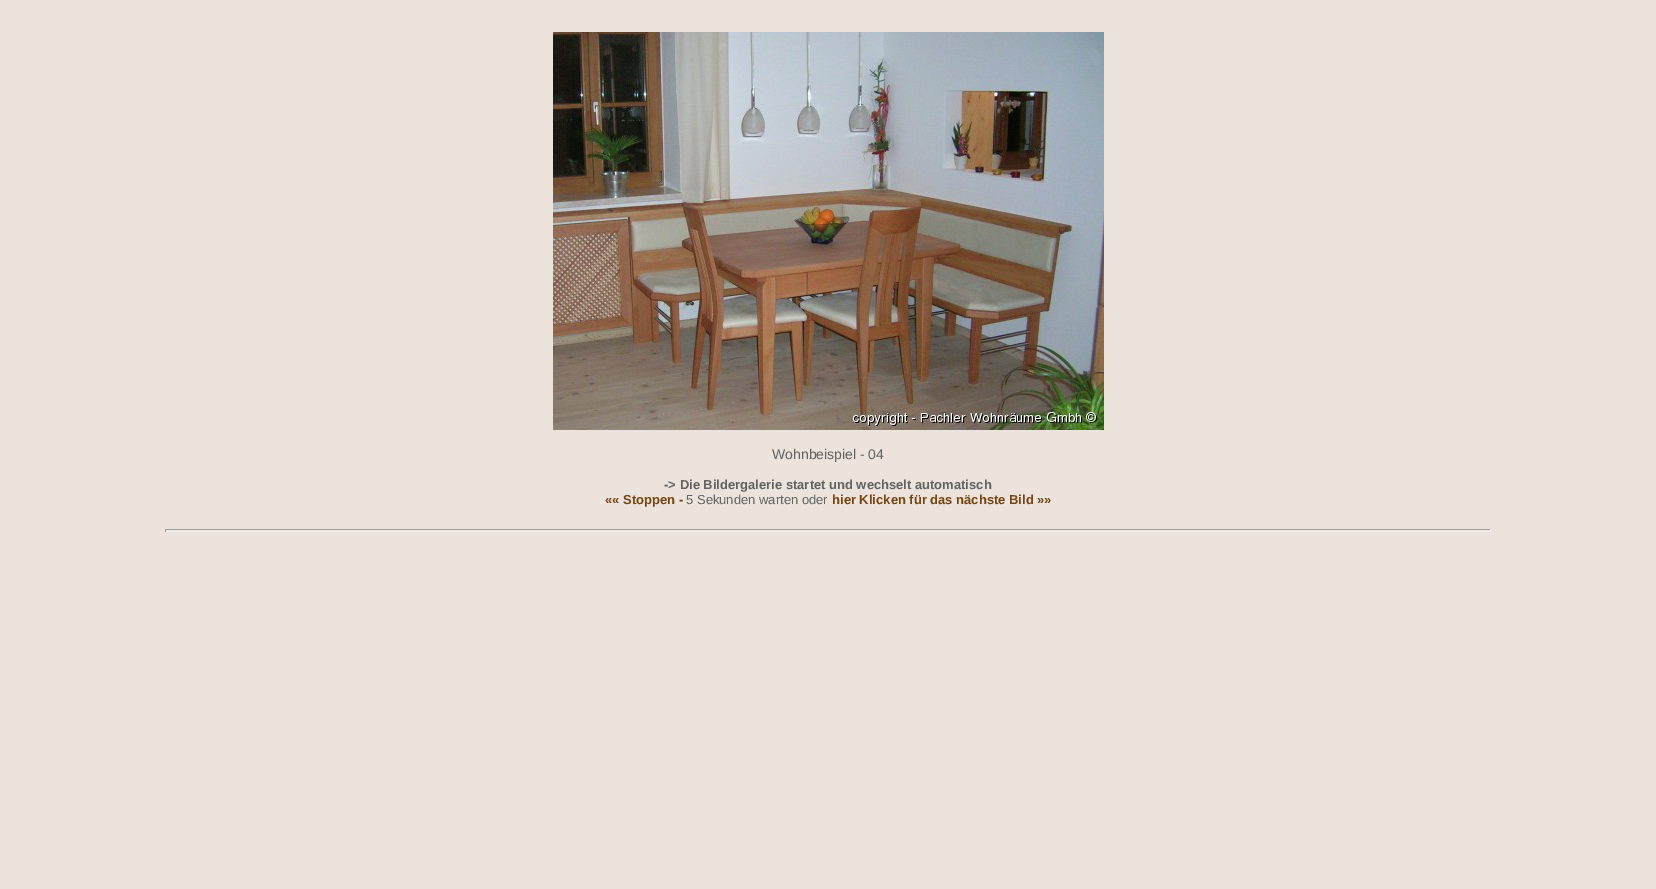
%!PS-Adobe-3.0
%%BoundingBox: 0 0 1656 889
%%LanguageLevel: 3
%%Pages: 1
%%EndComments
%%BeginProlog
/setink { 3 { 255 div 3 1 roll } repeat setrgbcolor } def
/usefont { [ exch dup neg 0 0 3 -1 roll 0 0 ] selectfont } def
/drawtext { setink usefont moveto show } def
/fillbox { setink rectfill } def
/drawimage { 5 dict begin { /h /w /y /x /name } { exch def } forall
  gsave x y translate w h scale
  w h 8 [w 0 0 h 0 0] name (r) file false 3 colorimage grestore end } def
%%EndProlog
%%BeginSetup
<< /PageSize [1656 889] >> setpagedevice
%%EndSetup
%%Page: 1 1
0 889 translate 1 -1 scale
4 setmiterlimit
0 0 1656 889 235 227 220 fillbox
(assets/img1.rgb) 553 32 551 398 drawimage
(Wohnbeispiel - 04) 772 459 /LiberationSans-Regular 14 98 98 98 drawtext
(-> Die Bildergalerie startet und wechselt automatisch) 664 489 /LiberationSans-Bold 13 98 98 98 drawtext
(«« Stoppen -) 605 504 /LiberationSans-Bold 13 118 68 18 drawtext
(5 Sekunden warten oder) 686 504 /LiberationSans-Regular 13 98 98 98 drawtext
(hier Klicken für das nächste Bild »») 832 504 /LiberationSans-Bold 13 118 68 18 drawtext
165 529 1326 1 159 159 159 fillbox
1490 529 1 3 238 238 238 fillbox
165 531 1326 1 238 238 238 fillbox
165 529 1 3 159 159 159 fillbox
showpage
%%EOF
